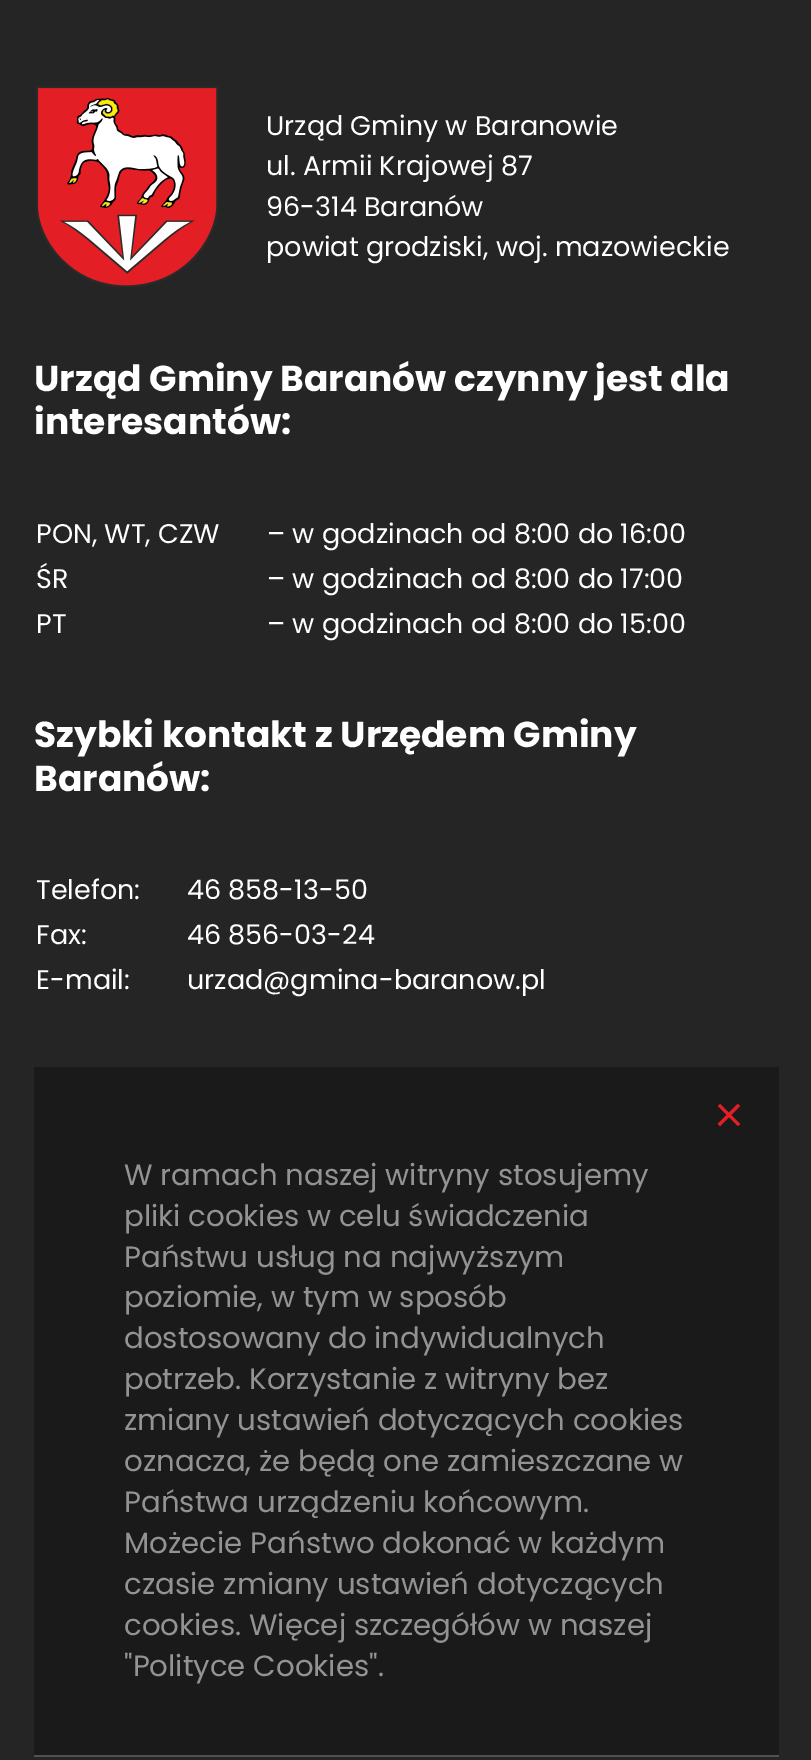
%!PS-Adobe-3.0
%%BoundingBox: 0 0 811 1760
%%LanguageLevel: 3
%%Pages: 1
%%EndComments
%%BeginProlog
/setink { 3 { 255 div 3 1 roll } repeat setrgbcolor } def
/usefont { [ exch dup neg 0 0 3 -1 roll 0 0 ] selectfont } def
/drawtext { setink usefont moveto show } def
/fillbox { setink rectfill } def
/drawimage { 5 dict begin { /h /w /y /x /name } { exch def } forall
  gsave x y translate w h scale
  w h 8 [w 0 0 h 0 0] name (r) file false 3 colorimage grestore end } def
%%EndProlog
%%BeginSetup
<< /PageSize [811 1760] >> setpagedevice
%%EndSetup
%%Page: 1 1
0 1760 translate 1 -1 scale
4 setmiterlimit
0 0 811 1760 37 37 37 fillbox
(assets/img1.rgb) 36 86 182 201 drawimage
(Urząd Gminy w Baranowie) 266 135 /Poppins-Regular 27 255 255 255 drawtext
(ul. Armii Krajowej 87) 266 175 /Poppins-Regular 27 255 255 255 drawtext
(96-314 Baranów) 266 216 /Poppins-Regular 27 255 255 255 drawtext
(powiat grodziski, woj. mazowieckie) 266 256 /Poppins-Regular 27 255 255 255 drawtext
(Urząd Gminy Baranów czynny jest dla) 34 391 /Poppins-Bold 36 255 255 255 drawtext
(interesantów:) 34 434 /Poppins-Bold 36 255 255 255 drawtext
(PON, WT, CZW) 36 543 /Poppins-Regular 27 255 255 255 drawtext
(– w godzinach od 8:00 do 16:00) 267 543 /Poppins-Regular 27 255 255 255 drawtext
(ŚR) 36 588 /Poppins-Regular 27 255 255 255 drawtext
(– w godzinach od 8:00 do 17:00) 267 588 /Poppins-Regular 27 255 255 255 drawtext
(PT) 36 633 /Poppins-Regular 27 255 255 255 drawtext
(– w godzinach od 8:00 do 15:00) 267 633 /Poppins-Regular 27 255 255 255 drawtext
(Szybki kontakt z Urzędem Gminy) 34 747 /Poppins-Bold 36 255 255 255 drawtext
(Baranów:) 34 791 /Poppins-Bold 36 255 255 255 drawtext
(Telefon:) 36 899 /Poppins-Regular 27 255 255 255 drawtext
(46 858-13-50) 187 899 /Poppins-Regular 27 255 255 255 drawtext
(Fax:) 36 944 /Poppins-Regular 27 255 255 255 drawtext
(46 856-03-24) 187 944 /Poppins-Regular 27 255 255 255 drawtext
(E-mail:) 36 989 /Poppins-Regular 27 255 255 255 drawtext
(urzad@gmina-baranow.pl) 187 989 /Poppins-Regular 27 255 255 255 drawtext
34 1067 745 688 26 26 26 fillbox
34 1755 745 2 81 81 81 fillbox
(×) 713 1135 /Poppins-Light 54 227 30 37 drawtext
(W ramach naszej witryny stosujemy) 124 1185 /Poppins-Regular 29.25 147 147 147 drawtext
(pliki cookies w celu świadczenia) 124 1226 /Poppins-Regular 29.25 147 147 147 drawtext
(Państwu usług na najwyższym) 124 1267 /Poppins-Regular 29.25 147 147 147 drawtext
(poziomie, w tym w sposób) 124 1307 /Poppins-Regular 29.25 147 147 147 drawtext
(dostosowany do indywidualnych) 124 1348 /Poppins-Regular 29.25 147 147 147 drawtext
(potrzeb. Korzystanie z witryny bez) 124 1389 /Poppins-Regular 29.25 147 147 147 drawtext
(zmiany ustawień dotyczących cookies) 124 1430 /Poppins-Regular 29.25 147 147 147 drawtext
(oznacza, że będą one zamieszczane w) 124 1471 /Poppins-Regular 29.25 147 147 147 drawtext
(Państwa urządzeniu końcowym.) 124 1512 /Poppins-Regular 29.25 147 147 147 drawtext
(Możecie Państwo dokonać w każdym) 124 1553 /Poppins-Regular 29.25 147 147 147 drawtext
(czasie zmiany ustawień dotyczących) 124 1594 /Poppins-Regular 29.25 147 147 147 drawtext
(cookies. Więcej szczegółów w naszej) 124 1635 /Poppins-Regular 29.25 147 147 147 drawtext
("Polityce Cookies".) 124 1676 /Poppins-Regular 29.25 147 147 147 drawtext
showpage
%%EOF
